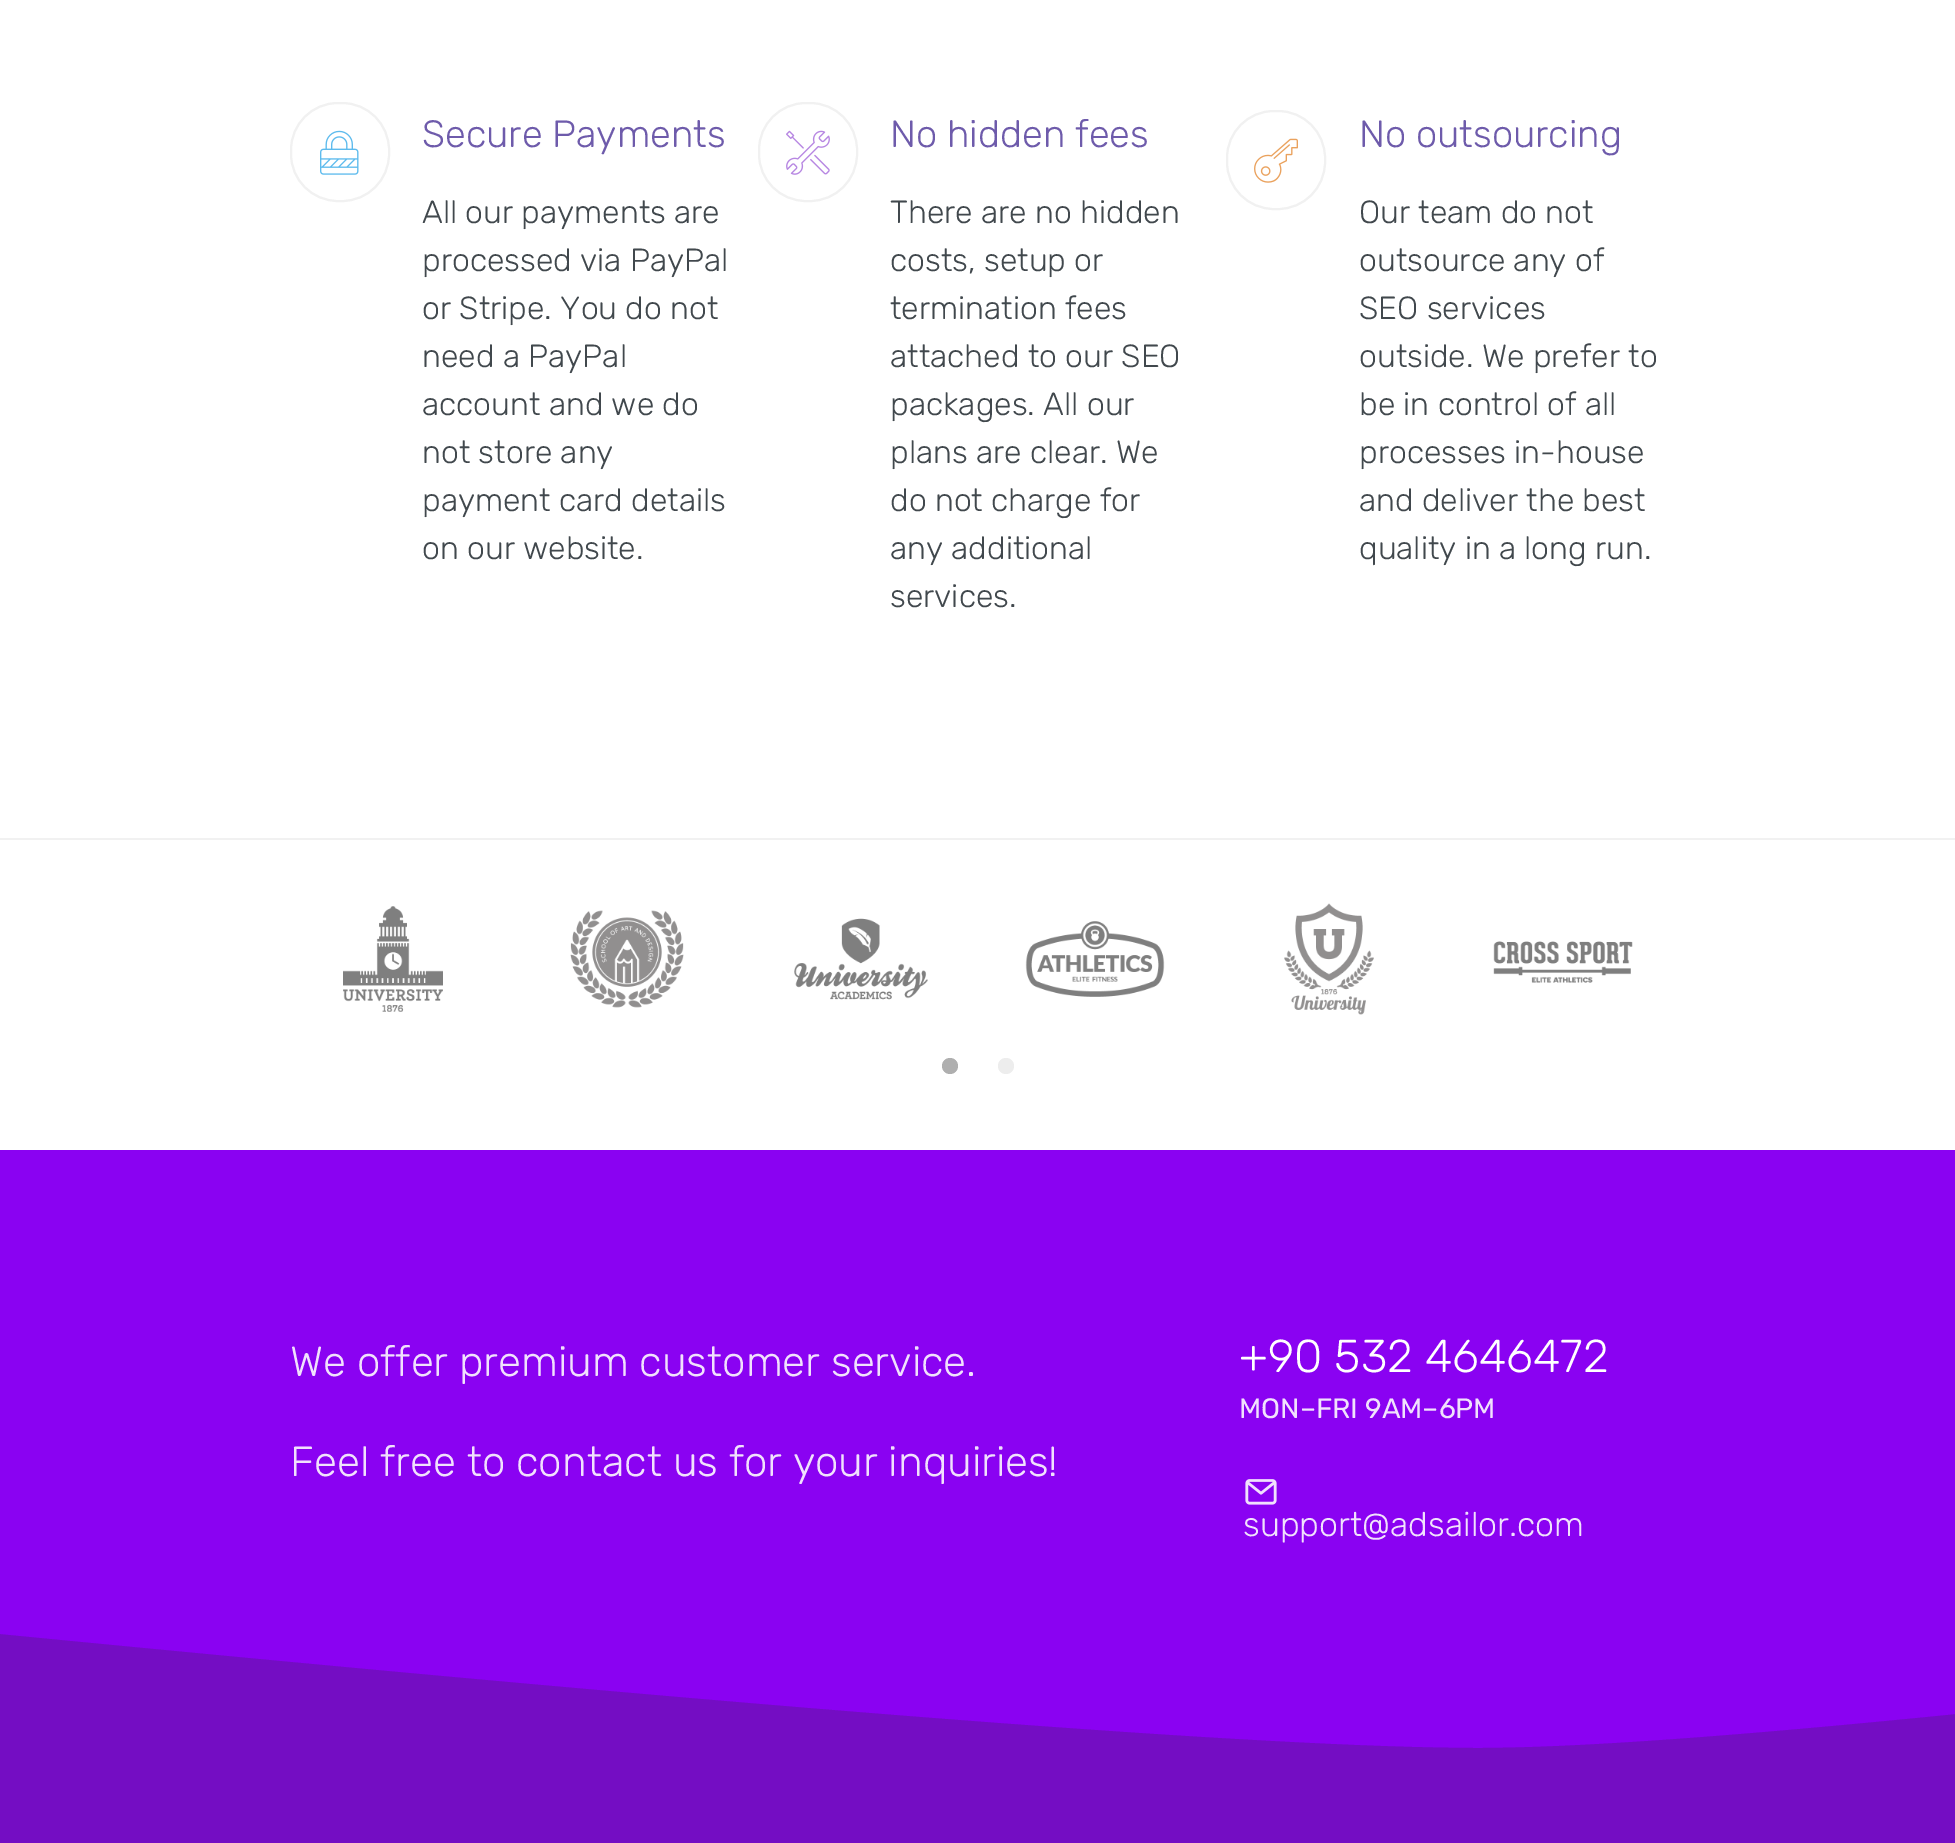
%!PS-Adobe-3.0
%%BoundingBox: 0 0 1955 1843
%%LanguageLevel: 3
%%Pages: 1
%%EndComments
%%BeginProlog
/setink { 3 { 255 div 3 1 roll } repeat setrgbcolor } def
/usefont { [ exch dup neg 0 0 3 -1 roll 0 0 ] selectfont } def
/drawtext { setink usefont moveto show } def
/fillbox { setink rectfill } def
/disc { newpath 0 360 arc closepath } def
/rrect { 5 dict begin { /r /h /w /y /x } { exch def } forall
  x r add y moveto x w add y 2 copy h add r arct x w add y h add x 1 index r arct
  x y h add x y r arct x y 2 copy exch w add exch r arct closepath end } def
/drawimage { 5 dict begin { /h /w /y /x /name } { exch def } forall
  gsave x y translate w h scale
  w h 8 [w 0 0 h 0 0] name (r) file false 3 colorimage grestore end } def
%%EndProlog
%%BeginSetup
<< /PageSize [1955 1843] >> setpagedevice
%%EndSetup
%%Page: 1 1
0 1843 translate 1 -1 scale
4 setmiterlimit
0 0 1955 1843 255 255 255 fillbox
241 241 241 setink
2 setlinewidth
291 103 98 98 47 rrect stroke
(assets/img1.rgb) 320 130 39 45 drawimage
(Secure Payments) 422 147 /Rubik-Light 38 110 91 171 drawtext
(All our payments are) 422 223 /Rubik-Light 32 65 72 77 drawtext
(processed via PayPal) 422 271 /Rubik-Light 32 65 72 77 drawtext
(or Stripe. You do not) 422 319 /Rubik-Light 32 65 72 77 drawtext
(need a PayPal) 422 367 /Rubik-Light 32 65 72 77 drawtext
(account and we do) 422 415 /Rubik-Light 32 65 72 77 drawtext
(not store any) 422 463 /Rubik-Light 32 65 72 77 drawtext
(payment card details) 422 511 /Rubik-Light 32 65 72 77 drawtext
(on our website.) 422 559 /Rubik-Light 32 65 72 77 drawtext
241 241 241 setink
759 103 98 98 47 rrect stroke
(assets/img2.rgb) 786 130 44 45 drawimage
(No hidden fees) 890 147 /Rubik-Light 38 110 91 171 drawtext
(There are no hidden) 890 223 /Rubik-Light 32 65 72 77 drawtext
(costs, setup or) 890 271 /Rubik-Light 32 65 72 77 drawtext
(termination fees) 890 319 /Rubik-Light 32 65 72 77 drawtext
(attached to our SEO) 890 367 /Rubik-Light 32 65 72 77 drawtext
(packages. All our) 890 415 /Rubik-Light 32 65 72 77 drawtext
(plans are clear. We) 890 463 /Rubik-Light 32 65 72 77 drawtext
(do not charge for) 890 511 /Rubik-Light 32 65 72 77 drawtext
(any additional) 890 559 /Rubik-Light 32 65 72 77 drawtext
(services.) 890 607 /Rubik-Light 32 65 72 77 drawtext
241 241 241 setink
1227 111 98 98 47 rrect stroke
(assets/img3.rgb) 1254 138 44 45 drawimage
(No outsourcing) 1359 147 /Rubik-Light 38 110 91 171 drawtext
(Our team do not) 1359 223 /Rubik-Light 32 65 72 77 drawtext
(outsource any of) 1359 271 /Rubik-Light 32 65 72 77 drawtext
(SEO services) 1359 319 /Rubik-Light 32 65 72 77 drawtext
(outside. We prefer to) 1359 367 /Rubik-Light 32 65 72 77 drawtext
(be in control of all) 1359 415 /Rubik-Light 32 65 72 77 drawtext
(processes in-house) 1359 463 /Rubik-Light 32 65 72 77 drawtext
(and deliver the best) 1359 511 /Rubik-Light 32 65 72 77 drawtext
(quality in a long run.) 1359 559 /Rubik-Light 32 65 72 77 drawtext
0 838 1955 2 241 241 241 fillbox
(assets/img4.rgb) 343 906 100 106 drawimage
(assets/img5.rgb) 570 910 114 98 drawimage
(assets/img6.rgb) 794 918 134 82 drawimage
(assets/img7.rgb) 1025 921 140 76 drawimage
(assets/img8.rgb) 1284 903 90 112 drawimage
(assets/img9.rgb) 1493 941 140 42 drawimage
175 175 175 setink
950 1066 8 disc fill
237 237 237 setink
1006 1066 8 disc fill
0 1150 1955 598 138 2 242 fillbox
(We offer premium customer service.) 290 1376 /Rubik-Light 42 241 225 253 drawtext
(Feel free to contact us for your inquiries!) 290 1476 /Rubik-Light 42 241 225 253 drawtext
(+90 532 4646472) 1239 1372 /Rubik-Light 46 255 255 255 drawtext
(MON–FRI 9AM–6PM) 1239 1418 /Rubik-Regular 28 241 225 253 drawtext
(assets/img10.rgb) 1245 1479 32 26 drawimage
(support@adsailor.com) 1243 1536 /Rubik-Light 34 241 225 253 drawtext
116 13 195 setink
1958 1714 moveto 1739 1736 1578 1748 1478 1748 curveto 1269 1748 776 1710 -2 1634 curveto -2 1754 lineto 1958 1754 lineto closepath fill
0 1754 1955 89 116 13 195 fillbox
showpage
%%EOF
